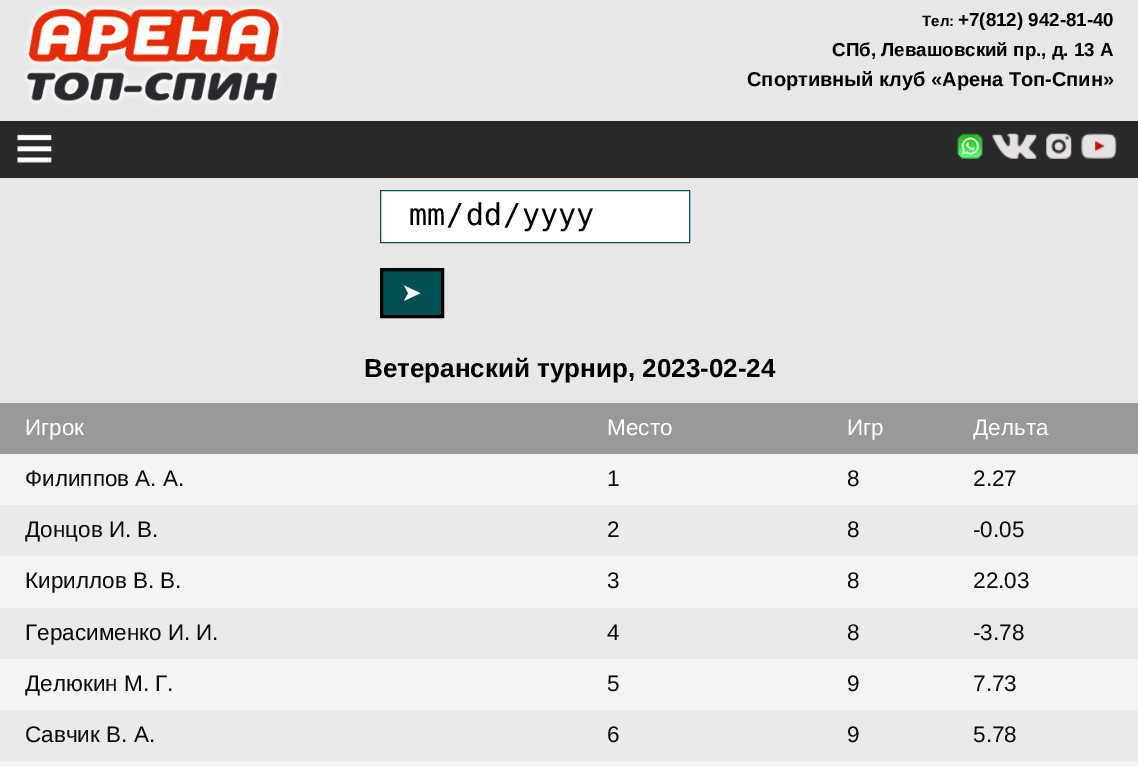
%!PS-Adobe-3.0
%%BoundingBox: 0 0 1138 767
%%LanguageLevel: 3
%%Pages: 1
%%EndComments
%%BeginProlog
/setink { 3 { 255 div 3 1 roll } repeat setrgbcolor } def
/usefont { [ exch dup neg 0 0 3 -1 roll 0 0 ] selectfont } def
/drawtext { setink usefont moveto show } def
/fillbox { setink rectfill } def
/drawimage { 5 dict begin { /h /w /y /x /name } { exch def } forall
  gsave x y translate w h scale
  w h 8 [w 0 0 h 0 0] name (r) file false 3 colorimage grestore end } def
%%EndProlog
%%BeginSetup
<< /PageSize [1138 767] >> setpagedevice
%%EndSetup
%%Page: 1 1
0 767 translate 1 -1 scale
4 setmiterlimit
0 0 1138 767 231 231 231 fillbox
(assets/img1.rgb) 24 5 259 100 drawimage
(Тел:) 922 26 /LiberationSans-Bold 15 0 0 0 drawtext
(+7\(812\) 942-81-40) 958 26 /LiberationSans-Bold 18.75 0 0 0 drawtext
(СПб, Левашовский пр., д. 13 А) 832 56 /LiberationSans-Bold 18.75 0 0 0 drawtext
(Спортивный клуб «Арена Топ-Спин») 747 86 /LiberationSans-Bold 20 0 0 0 drawtext
0 121 1138 57 41 41 41 fillbox
(assets/img2.rgb) 17 134 35 29 drawimage
(assets/img3.rgb) 957 133 26 26 drawimage
(assets/img4.rgb) 992 133 45 26 drawimage
(assets/img5.rgb) 1046 133 26 26 drawimage
(assets/img6.rgb) 1081 133 36 26 drawimage
255 255 255 setink
380.5 190.5 moveto 689.5 190.5 lineto 689.5 242.5 lineto 380.5 242.5 lineto closepath gsave fill grestore
0 81 81 setink
stroke
(mm) 409 225 /DejaVuSansMono-Regular 30 0 0 0 drawtext
(/) 446 225 /DejaVuSansMono-Regular 30 0 0 0 drawtext
(dd) 466 225 /DejaVuSansMono-Regular 30 0 0 0 drawtext
(/) 503 225 /DejaVuSansMono-Regular 30 0 0 0 drawtext
(yyyy) 522 225 /DejaVuSansMono-Regular 30 0 0 0 drawtext
0 81 81 setink
381.5 269.5 moveto 442.5 269.5 lineto 442.5 316.5 lineto 381.5 316.5 lineto closepath gsave fill grestore
0 0 0 setink
3 setlinewidth
stroke
(➤) 401 301 /DejaVuSans-Regular 25 255 255 255 drawtext
(Ветеранский турнир, 2023-02-24) 364 377 /LiberationSans-Bold 26 0 0 0 drawtext
0 403 1138 51 153 153 153 fillbox
(Игрок) 25 435 /LiberationSans-Regular 22.5 255 255 255 drawtext
(Место) 607 435 /LiberationSans-Regular 22.5 255 255 255 drawtext
(Игр) 847 435 /LiberationSans-Regular 22.5 255 255 255 drawtext
(Дельта) 973 435 /LiberationSans-Regular 22.5 255 255 255 drawtext
0 454 1138 51 244 244 244 fillbox
(Филиппов А. А.) 25 486 /LiberationSans-Regular 22.5 12 12 12 drawtext
(1) 607 486 /LiberationSans-Regular 22.5 12 12 12 drawtext
(8) 847 486 /LiberationSans-Regular 22.5 12 12 12 drawtext
(2.27) 973 486 /LiberationSans-Regular 22.5 12 12 12 drawtext
0 505 1138 51 234 234 234 fillbox
(Донцов И. В.) 25 537 /LiberationSans-Regular 22.5 12 12 12 drawtext
(2) 607 537 /LiberationSans-Regular 22.5 12 12 12 drawtext
(8) 847 537 /LiberationSans-Regular 22.5 12 12 12 drawtext
(-0.05) 973 537 /LiberationSans-Regular 22.5 12 12 12 drawtext
0 556 1138 52 244 244 244 fillbox
(Кириллов В. В.) 25 588 /LiberationSans-Regular 22.5 12 12 12 drawtext
(3) 607 588 /LiberationSans-Regular 22.5 12 12 12 drawtext
(8) 847 588 /LiberationSans-Regular 22.5 12 12 12 drawtext
(22.03) 973 588 /LiberationSans-Regular 22.5 12 12 12 drawtext
0 608 1138 51 234 234 234 fillbox
(Герасименко И. И.) 25 640 /LiberationSans-Regular 22.5 12 12 12 drawtext
(4) 607 640 /LiberationSans-Regular 22.5 12 12 12 drawtext
(8) 847 640 /LiberationSans-Regular 22.5 12 12 12 drawtext
(-3.78) 973 640 /LiberationSans-Regular 22.5 12 12 12 drawtext
0 659 1138 51 244 244 244 fillbox
(Делюкин М. Г.) 25 691 /LiberationSans-Regular 22.5 12 12 12 drawtext
(5) 607 691 /LiberationSans-Regular 22.5 12 12 12 drawtext
(9) 847 691 /LiberationSans-Regular 22.5 12 12 12 drawtext
(7.73) 973 691 /LiberationSans-Regular 22.5 12 12 12 drawtext
0 710 1138 51 234 234 234 fillbox
(Савчик В. А.) 25 742 /LiberationSans-Regular 22.5 12 12 12 drawtext
(6) 607 742 /LiberationSans-Regular 22.5 12 12 12 drawtext
(9) 847 742 /LiberationSans-Regular 22.5 12 12 12 drawtext
(5.78) 973 742 /LiberationSans-Regular 22.5 12 12 12 drawtext
0 761 1138 6 244 244 244 fillbox
showpage
%%EOF
